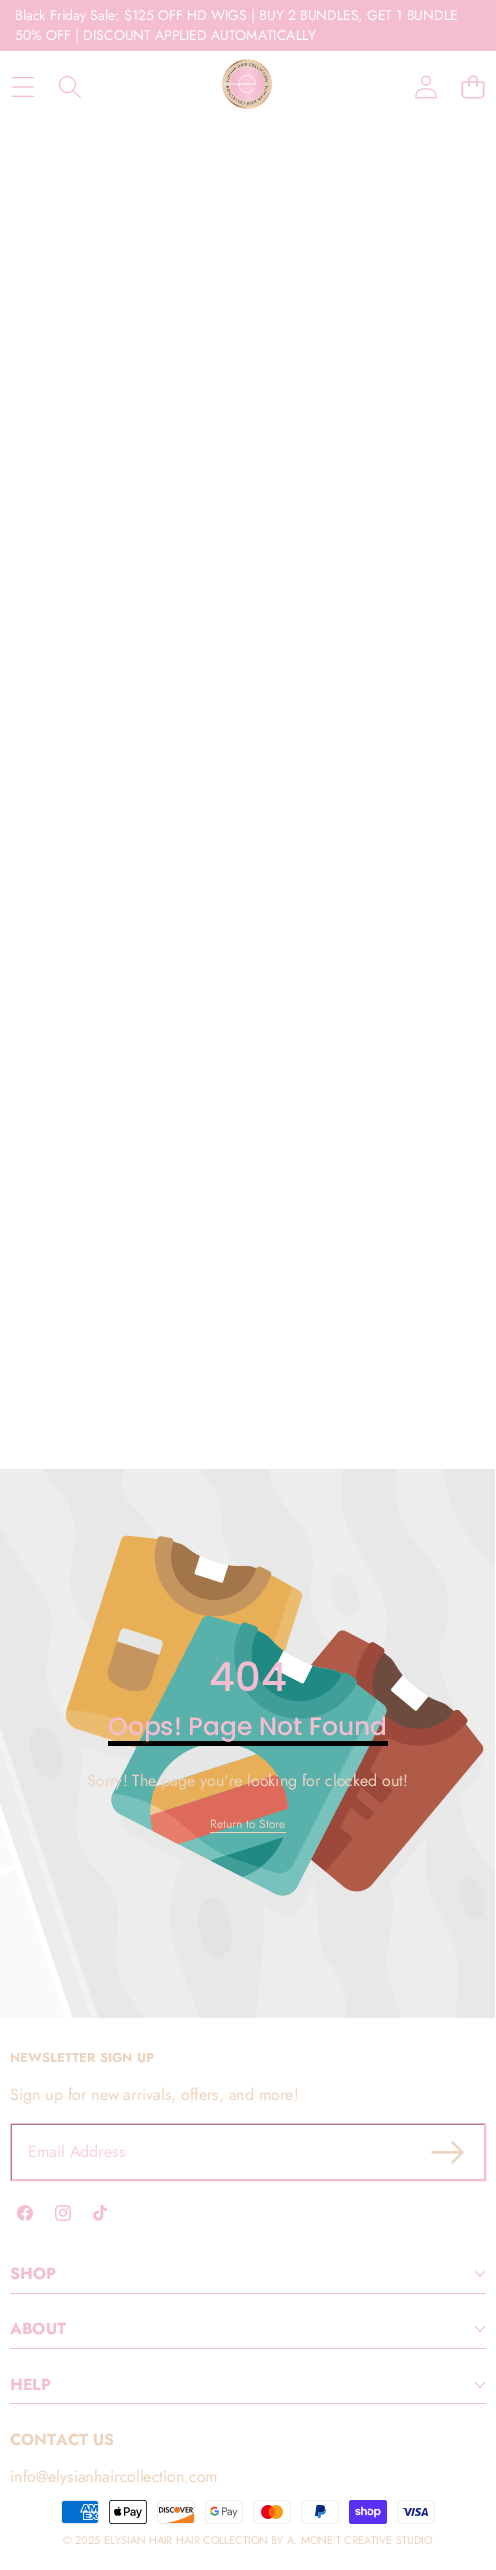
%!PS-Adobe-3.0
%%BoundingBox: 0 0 496 2570
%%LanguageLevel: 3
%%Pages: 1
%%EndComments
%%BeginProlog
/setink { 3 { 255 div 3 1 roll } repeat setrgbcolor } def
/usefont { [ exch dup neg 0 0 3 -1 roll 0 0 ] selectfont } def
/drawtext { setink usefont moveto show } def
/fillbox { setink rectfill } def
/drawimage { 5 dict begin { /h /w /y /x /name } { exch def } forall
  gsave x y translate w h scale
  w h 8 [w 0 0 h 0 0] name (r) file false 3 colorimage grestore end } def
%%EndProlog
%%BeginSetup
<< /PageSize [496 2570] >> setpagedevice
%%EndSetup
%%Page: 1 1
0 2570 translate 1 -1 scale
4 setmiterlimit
0 0 496 2570 255 255 255 fillbox
0 0 496 51 245 189 208 fillbox
(Black Friday Sale: $125 OFF HD WIGS | BUY 2 BUNDLES, GET 1 BUNDLE) 15 20 /Jost-Regular 14 255 255 255 drawtext
(50% OFF | DISCOUNT APPLIED AUTOMATICALLY) 15 40 /Jost-Regular 14 255 255 255 drawtext
(assets/img1.rgb) 11 77 23 20 drawimage
(assets/img2.rgb) 58 76 23 23 drawimage
(assets/img3.rgb) 222 59 50 50 drawimage
(assets/img4.rgb) 415 75 22 24 drawimage
(assets/img5.rgb) 461 75 24 24 drawimage
(assets/img6.rgb) 0 1469 495 549 drawimage
(404) 209 1691 /Poppins-Medium 40 245 189 208 drawtext
108 1741 280 5 0 0 0 fillbox
(Oops! Page Not Found) 108 1735 /Poppins-Medium 25 245 189 208 drawtext
(Sorry! The page you're looking for clocked out!) 87 1786 /Jost-Regular 16 236 211 190 drawtext
(Return to Store) 210 1828 /Jost-Regular 12 236 211 190 drawtext
210 1832 76 1 236 211 190 fillbox
(NEWSLETTER SIGN UP) 10 2062 /Jost-Bold 13 236 211 190 drawtext
(Sign up for new arrivals, offers, and more!) 10 2100 /Jost-Regular 16 236 211 190 drawtext
245 189 208 setink
10.5 2123.5 475 57 rectstroke
11 2124 474 1 163 126 139 fillbox
484 2124 1 56 245 189 208 fillbox
11 2179 474 1 245 189 208 fillbox
11 2124 1 56 163 126 139 fillbox
(Email Address) 28 2157 /Jost-Regular 16 248 209 222 drawtext
(assets/img7.rgb) 431 2141 33 23 drawimage
(assets/img8.rgb) 17 2205 16 16 drawimage
(assets/img9.rgb) 55 2205 16 16 drawimage
(assets/img10.rgb) 93 2204 14 17 drawimage
10 2293 476 1 245 189 208 fillbox
(SHOP) 10 2279 /Jost-Bold 16 245 189 208 drawtext
(assets/img11.rgb) 474 2271 12 6 drawimage
10 2348 476 1 245 189 208 fillbox
(ABOUT) 10 2334 /Jost-Bold 16 245 189 208 drawtext
(assets/img11.rgb) 474 2326 12 6 drawimage
10 2403 476 1 245 189 208 fillbox
(HELP) 10 2390 /Jost-Bold 16 245 189 208 drawtext
(assets/img11.rgb) 474 2382 12 6 drawimage
(CONTACT US) 10 2445 /Jost-Bold 16 236 211 190 drawtext
(info@elysianhaircollection.com) 10 2482 /Jost-Regular 16 236 211 190 drawtext
(assets/img12.rgb) 61 2500 38 24 drawimage
(assets/img13.rgb) 109 2500 38 24 drawimage
(assets/img14.rgb) 157 2500 38 24 drawimage
(assets/img15.rgb) 205 2500 38 24 drawimage
(assets/img16.rgb) 253 2500 38 24 drawimage
(assets/img17.rgb) 301 2500 38 24 drawimage
(assets/img18.rgb) 349 2500 38 24 drawimage
(assets/img19.rgb) 397 2500 38 24 drawimage
(© 2025 ELYSIAN HAIR HAIR COLLECTION BY A. MONE'T CREATIVE STUDIO) 63 2544 /Jost-Regular 11 236 211 190 drawtext
showpage
%%EOF
